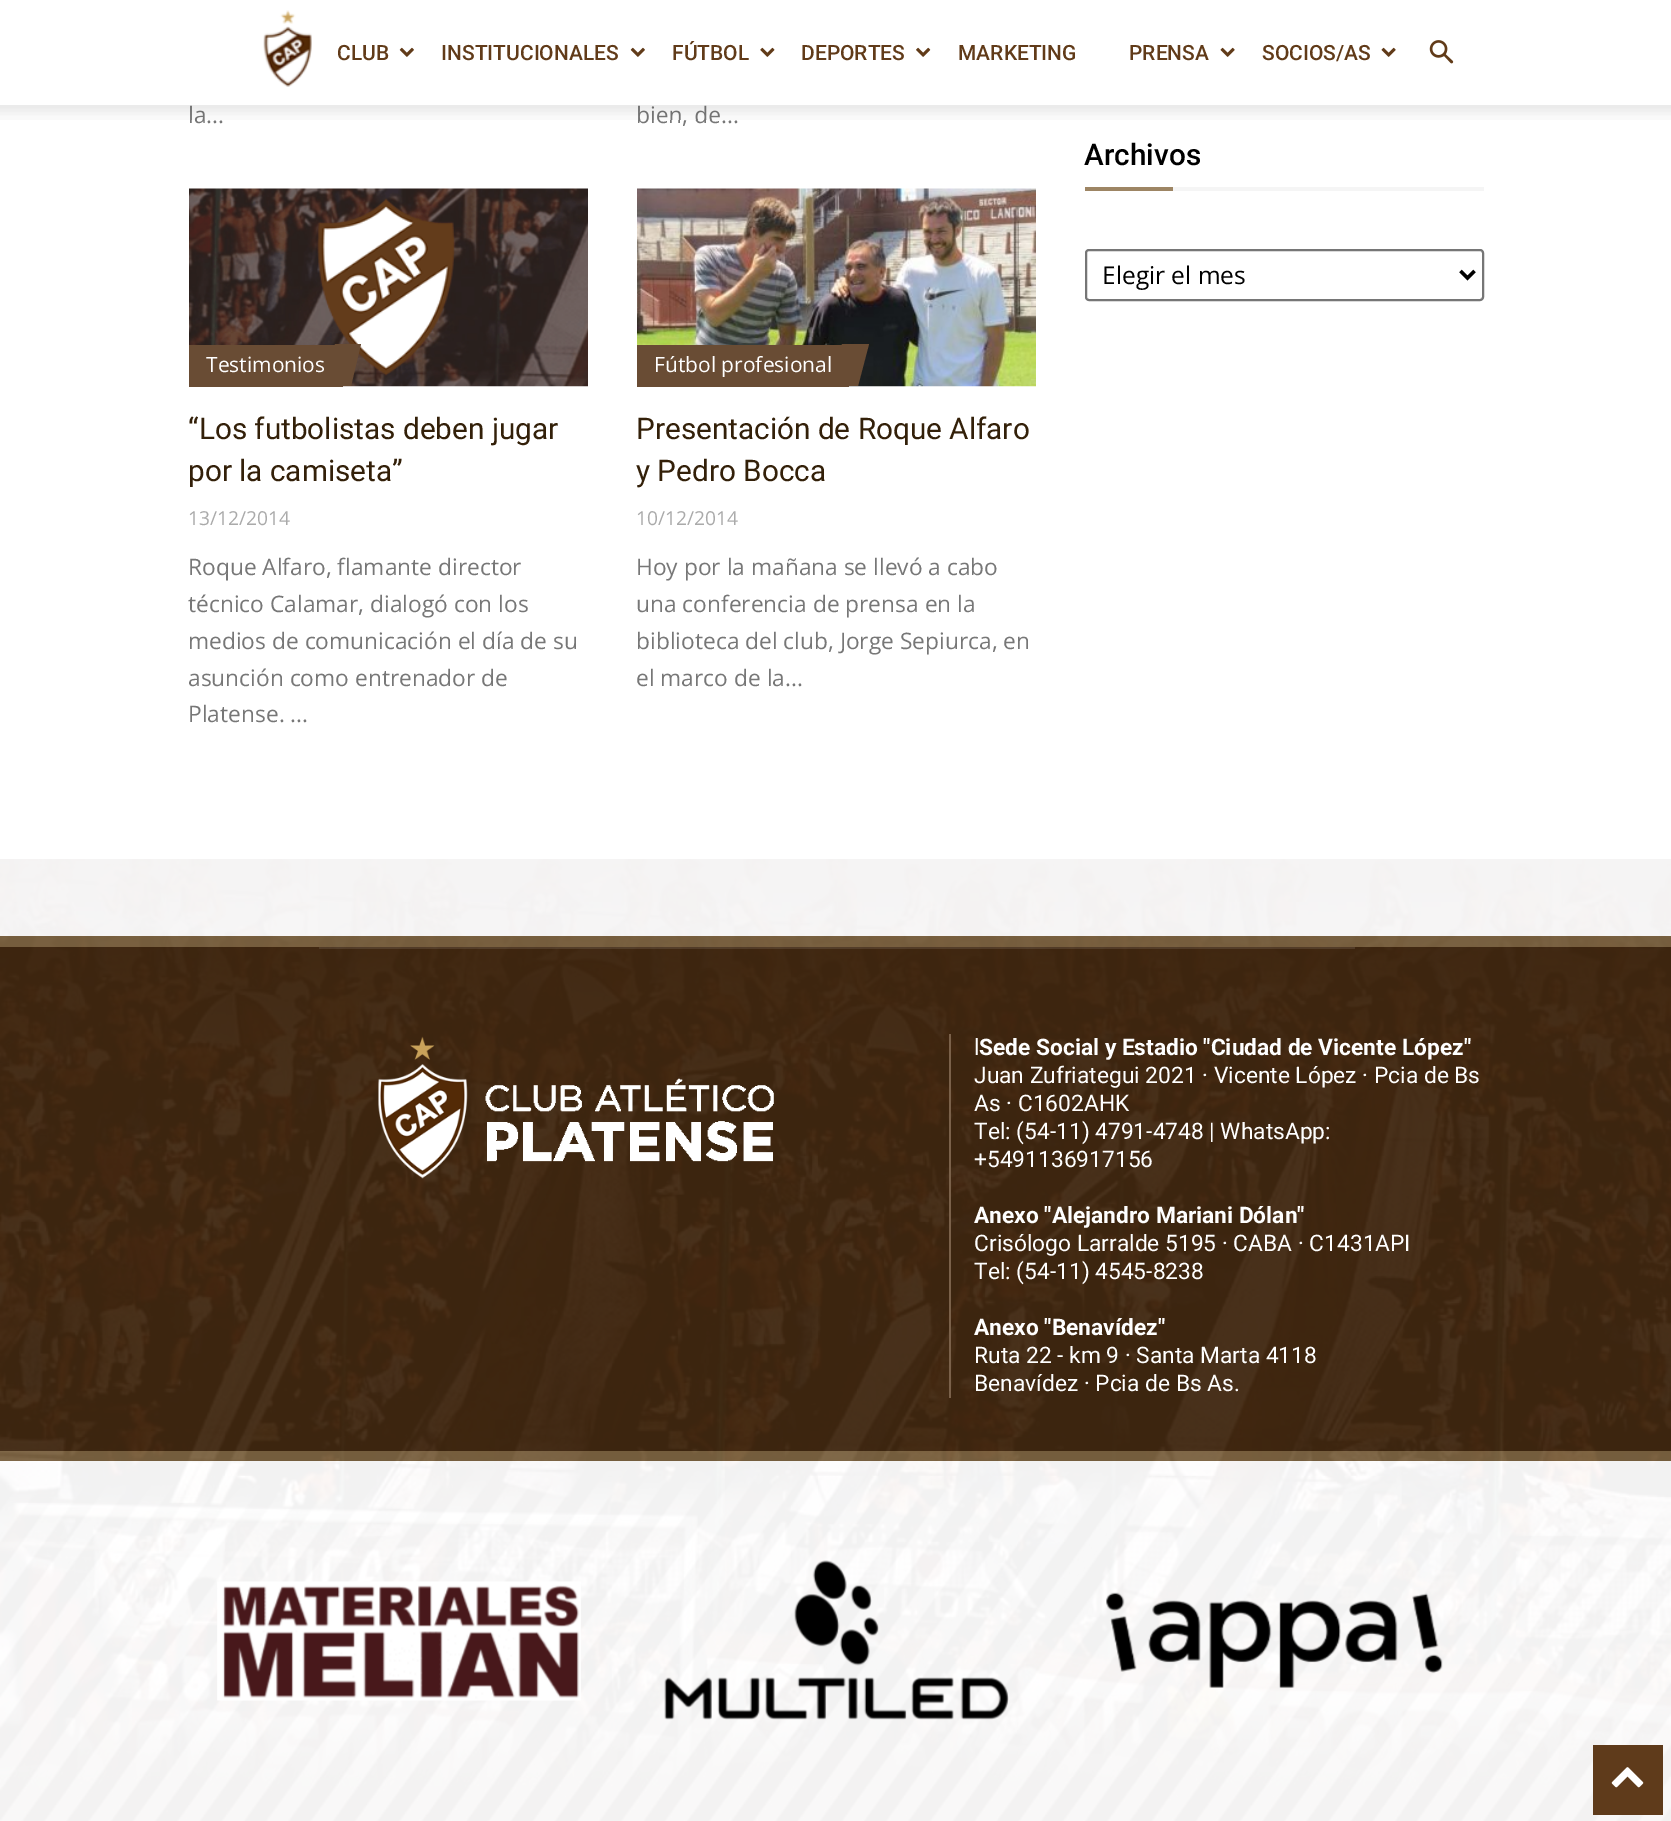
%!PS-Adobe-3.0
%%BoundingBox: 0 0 1671 1821
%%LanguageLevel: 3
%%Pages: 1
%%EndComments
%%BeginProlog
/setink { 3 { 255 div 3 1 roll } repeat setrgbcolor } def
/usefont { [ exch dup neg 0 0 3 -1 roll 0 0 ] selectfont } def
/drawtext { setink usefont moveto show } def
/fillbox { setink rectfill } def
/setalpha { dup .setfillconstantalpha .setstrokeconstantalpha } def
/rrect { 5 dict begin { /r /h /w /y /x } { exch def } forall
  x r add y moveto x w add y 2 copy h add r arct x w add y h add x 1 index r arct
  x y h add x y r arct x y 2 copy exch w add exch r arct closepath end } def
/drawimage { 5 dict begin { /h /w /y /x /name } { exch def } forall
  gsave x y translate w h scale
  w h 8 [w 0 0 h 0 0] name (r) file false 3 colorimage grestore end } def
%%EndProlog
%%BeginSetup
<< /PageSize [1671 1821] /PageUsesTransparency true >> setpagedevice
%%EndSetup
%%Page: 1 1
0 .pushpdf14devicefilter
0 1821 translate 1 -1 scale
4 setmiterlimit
0 0 1671 1821 255 255 255 fillbox
(assets/img1.rgb) 263 10 49 77 drawimage
(CLUB) 337 60 /Roboto-Medium 21 97 59 25 drawtext
(assets/img2.rgb) 399 47 15 10 drawimage
(INSTITUCIONALES) 441 60 /Roboto-Medium 21 97 59 25 drawtext
(assets/img2.rgb) 630 47 15 10 drawimage
(FÚTBOL) 672 60 /Roboto-Medium 21 97 59 25 drawtext
(assets/img3.rgb) 760 47 15 10 drawimage
(DEPORTES) 801 60 /Roboto-Medium 21 97 59 25 drawtext
(assets/img4.rgb) 916 47 15 10 drawimage
(MARKETING) 958 60 /Roboto-Medium 21 97 59 25 drawtext
(PRENSA) 1129 60 /Roboto-Medium 21 97 59 25 drawtext
(assets/img5.rgb) 1220 47 15 10 drawimage
(SOCIOS/AS) 1262 60 /Roboto-Medium 21 97 59 25 drawtext
(assets/img5.rgb) 1381 47 15 10 drawimage
(assets/img6.rgb) 1429 40 25 24 drawimage
(la...) 188 123 /OpenSans-Regular 22.75 119 119 119 drawtext
(bien, de...) 636 123 /OpenSans-Regular 22.75 119 119 119 drawtext
(assets/img7.rgb) 0 105 1671 15 drawimage
(assets/img8.rgb) 189 188 399 199 drawimage
189 345 154 42 105 76 52 fillbox
(Testimonios) 206 372 /OpenSans-Regular 21 255 255 255 drawtext
105 76 52 setink
335 344 moveto 361 344 lineto 351 386 lineto 325 386 lineto closepath fill
(“Los futbolistas deben jugar) 188 439 /Roboto-Regular 29.75 51 32 9 drawtext
(por la camiseta”) 188 481 /Roboto-Regular 29.75 51 32 9 drawtext
(13/12/2014) 188 525 /OpenSans-Regular 19.25 170 170 170 drawtext
(Roque Alfaro, flamante director) 188 575 /OpenSans-Regular 22.75 119 119 119 drawtext
(técnico Calamar, dialogó con los) 188 612 /OpenSans-Regular 22.75 119 119 119 drawtext
(medios de comunicación el día de su) 188 649 /OpenSans-Regular 22.75 119 119 119 drawtext
(asunción como entrenador de) 188 686 /OpenSans-Regular 22.75 119 119 119 drawtext
(Platense. ...) 188 722 /OpenSans-Regular 22.75 119 119 119 drawtext
(assets/img9.rgb) 637 188 399 199 drawimage
637 345 212 42 105 76 52 fillbox
(Fútbol profesional) 654 372 /OpenSans-Regular 21 255 255 255 drawtext
105 76 52 setink
842 344 moveto 869 344 lineto 858 386 lineto 832 386 lineto closepath fill
(Presentación de Roque Alfaro) 636 439 /Roboto-Regular 29.75 51 32 9 drawtext
(y Pedro Bocca) 636 481 /Roboto-Regular 29.75 51 32 9 drawtext
(10/12/2014) 636 525 /OpenSans-Regular 19.25 170 170 170 drawtext
(Hoy por la mañana se llevó a cabo) 636 575 /OpenSans-Regular 22.75 119 119 119 drawtext
(una conferencia de prensa en la) 636 612 /OpenSans-Regular 22.75 119 119 119 drawtext
(biblioteca del club, Jorge Sepiurca, en) 636 649 /OpenSans-Regular 22.75 119 119 119 drawtext
(el marco de la...) 636 686 /OpenSans-Regular 22.75 119 119 119 drawtext
(Archivos) 1084 165 /Roboto-Medium 29.75 0 0 0 drawtext
1085 187 88 4 157 133 100 fillbox
1173 187 311 4 245 245 245 fillbox
118 118 118 setink
2 setlinewidth
1086 250 397 50 3 rrect stroke
0 0 0 setink
3.5 setlinewidth
1460.5 271 moveto 1467.5 278 lineto 1474.5 271 lineto stroke
(Elegir el mes) 1102 284 /OpenSans-Regular 24.5 0 0 0 drawtext
0 947 1671 504 63 39 16 fillbox
0 936 1671 11 122 98 64 fillbox
0 1451 1671 10 122 98 64 fillbox
(assets/img10.rgb) 0 859 1671 962 drawimage
0.1 setalpha
319 947 1036 2 255 255 255 fillbox
1 setalpha
(assets/img11.rgb) 378 1036 396 143 drawimage
949 1034 2 364 122 97 74 fillbox
(l) 974 1055 /Roboto-Regular 22.75 255 255 255 drawtext
(Sede Social y Estadio "Ciudad de Vicente López") 979 1055 /Roboto-Bold 22.75 255 255 255 drawtext
(Juan Zufriategui 2021 · Vicente López · Pcia de Bs) 974 1083 /Roboto-Regular 22.75 255 255 255 drawtext
(As · C1602AHK) 974 1111 /Roboto-Regular 22.75 255 255 255 drawtext
(Tel: \(54-11\) 4791-4748 | WhatsApp:) 974 1139 /Roboto-Regular 22.75 255 255 255 drawtext
(+5491136917156) 974 1167 /Roboto-Regular 22.75 255 255 255 drawtext
(Anexo "Alejandro Mariani Dólan") 974 1223 /Roboto-Bold 22.75 255 255 255 drawtext
(Crisólogo Larralde 5195 · CABA · C1431API) 974 1251 /Roboto-Regular 22.75 255 255 255 drawtext
(Tel: \(54-11\) 4545-8238) 974 1279 /Roboto-Regular 22.75 255 255 255 drawtext
(Anexo "Benavídez") 974 1335 /Roboto-Bold 22.75 255 255 255 drawtext
(Ruta 22 - km 9 · Santa Marta 4118) 974 1363 /Roboto-Regular 22.75 255 255 255 drawtext
(Benavídez · Pcia de Bs As.) 974 1391 /Roboto-Regular 22.75 255 255 255 drawtext
(assets/img12.rgb) 217 1581 364 120 drawimage
(assets/img13.rgb) 664 1560 345 160 drawimage
(assets/img14.rgb) 1106 1592 337 96 drawimage
1593 1745 70 70 95 59 27 fillbox
(assets/img15.rgb) 1611 1767 33 21 drawimage
.poppdf14devicefilter showpage
%%EOF
